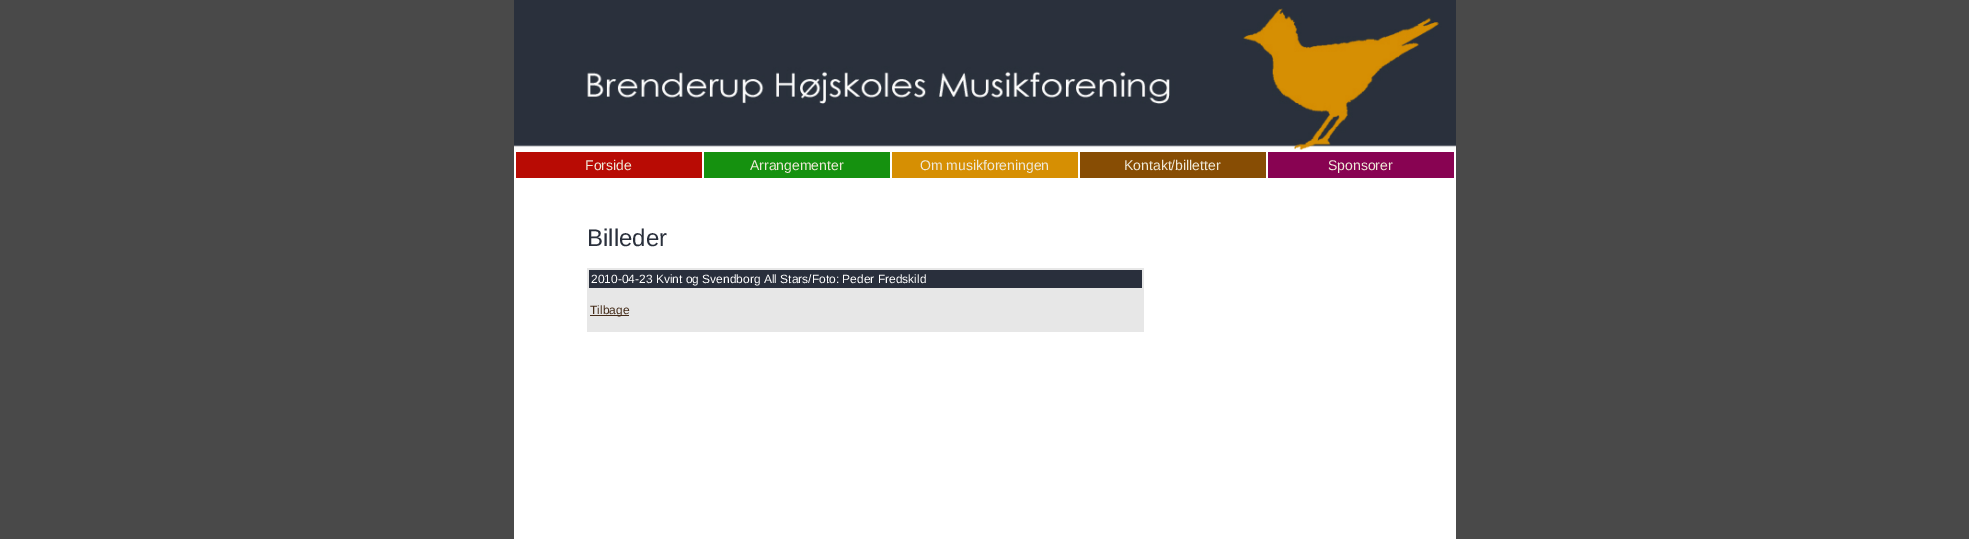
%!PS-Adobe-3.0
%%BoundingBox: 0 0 1969 539
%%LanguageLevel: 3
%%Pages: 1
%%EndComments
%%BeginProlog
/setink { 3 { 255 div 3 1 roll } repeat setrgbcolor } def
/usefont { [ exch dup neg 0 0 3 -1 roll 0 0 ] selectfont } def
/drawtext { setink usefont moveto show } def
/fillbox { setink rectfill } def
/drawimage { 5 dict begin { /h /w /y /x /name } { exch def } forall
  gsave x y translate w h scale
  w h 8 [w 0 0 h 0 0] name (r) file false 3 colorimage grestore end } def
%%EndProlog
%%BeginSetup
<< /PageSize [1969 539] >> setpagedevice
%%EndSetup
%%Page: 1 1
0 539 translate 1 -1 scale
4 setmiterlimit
0 0 1969 539 73 73 73 fillbox
514 150 942 389 255 255 255 fillbox
(assets/img1.rgb) 514 0 942 150 drawimage
516 152 186 26 184 11 4 fillbox
(Forside) 585 170 /LiberationSans-Regular 14 240 234 218 drawtext
704 152 186 26 21 145 15 fillbox
(Arrangementer) 750 170 /LiberationSans-Regular 14 240 234 218 drawtext
892 152 186 26 214 143 3 fillbox
(Om musikforeningen) 920 170 /LiberationSans-Regular 14 240 234 218 drawtext
1080 152 186 26 135 77 4 fillbox
(Kontakt/billetter) 1124 170 /LiberationSans-Regular 14 240 234 218 drawtext
1268 152 186 26 136 3 82 fillbox
(Sponsorer) 1328 170 /LiberationSans-Regular 14 240 234 218 drawtext
(Billeder) 587 246 /LiberationSans-Regular 24 42 48 60 drawtext
587 268 557 64 231 231 231 fillbox
589 270 553 18 41 47 60 fillbox
(2010-04-23 Kvint og Svendborg All Stars/Foto: Peder Fredskild) 591 283 /LiberationSans-Regular 12 255 255 255 drawtext
590 315 39 1 69 44 25 fillbox
(Tilbage) 590 314 /LiberationSans-Regular 12 69 44 25 drawtext
showpage
%%EOF
